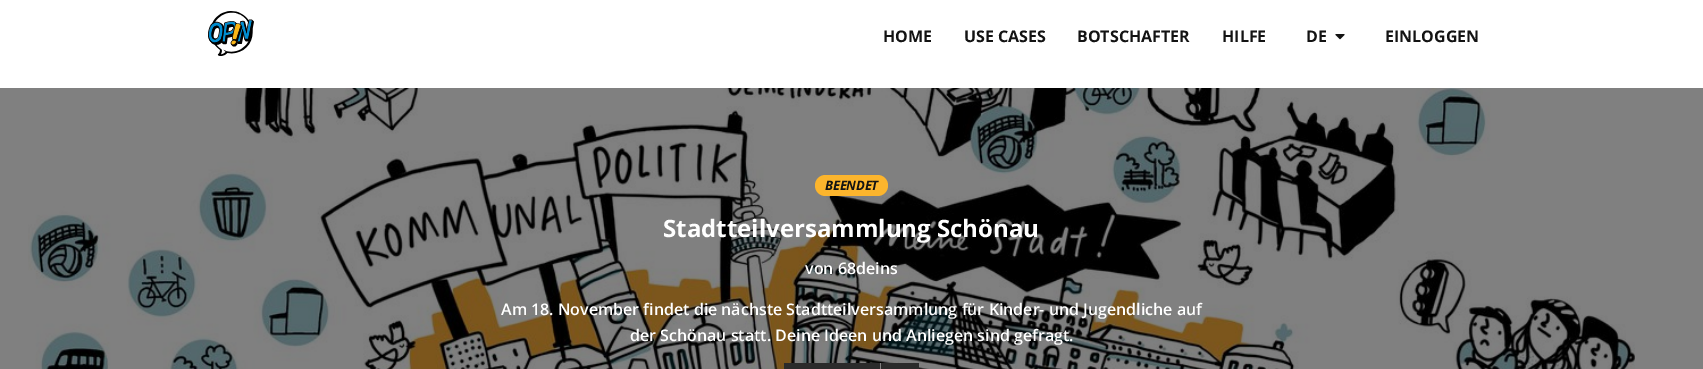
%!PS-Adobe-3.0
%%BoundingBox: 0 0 1703 369
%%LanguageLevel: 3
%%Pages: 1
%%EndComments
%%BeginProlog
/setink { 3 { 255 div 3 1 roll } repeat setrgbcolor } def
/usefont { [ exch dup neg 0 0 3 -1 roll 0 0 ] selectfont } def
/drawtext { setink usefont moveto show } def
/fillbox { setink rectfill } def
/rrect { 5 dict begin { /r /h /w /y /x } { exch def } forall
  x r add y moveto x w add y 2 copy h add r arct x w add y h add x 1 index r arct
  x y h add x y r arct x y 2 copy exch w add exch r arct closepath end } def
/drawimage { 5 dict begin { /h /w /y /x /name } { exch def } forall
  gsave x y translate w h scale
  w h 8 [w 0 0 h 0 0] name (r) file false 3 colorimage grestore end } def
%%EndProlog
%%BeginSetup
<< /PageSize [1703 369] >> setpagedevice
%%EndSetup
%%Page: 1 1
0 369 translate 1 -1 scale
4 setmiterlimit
0 0 1703 369 255 255 255 fillbox
0 88 1703 281 128 128 128 fillbox
(assets/img1.rgb) 208 11 46 45 drawimage
(HOME) 883 42 /OpenSans-Bold 16 19 19 19 drawtext
(USE CASES) 964 42 /OpenSans-Bold 16 19 19 19 drawtext
(BOTSCHAFTER) 1077 42 /OpenSans-Bold 16 19 19 19 drawtext
(HILFE) 1222 42 /OpenSans-Bold 16 19 19 19 drawtext
(DE) 1306 42 /OpenSans-Bold 16 19 19 19 drawtext
(assets/img2.rgb) 1335 34 10 6 drawimage
(EINLOGGEN) 1385 42 /OpenSans-Bold 16 19 19 19 drawtext
(assets/img3.rgb) 28 88 1607 281 drawimage
252 181 45 setink
815 175 73 21 10.5 rrect fill
/OpenSans-BoldItalic 13 usefont
19 19 19 setink
825 190 moveto -0.25 0 (BEENDET) ashow
(Stadtteilversammlung Schönau) 663 237 /OpenSans-Bold 24 255 255 255 drawtext
(von 68deins) 805 274 /OpenSans-SemiBold 16 255 255 255 drawtext
(Am 18. November findet die nächste Stadtteilversammlung für Kinder- und Jugendliche auf) 501 315 /OpenSans-SemiBold 16 255 255 255 drawtext
(der Schönau statt. Deine Ideen und Anliegen sind gefragt.) 630 341 /OpenSans-SemiBold 16 255 255 255 drawtext
880 363 1 6 129 129 129 fillbox
784 363 96 6 43 43 43 fillbox
881 363 38 6 43 43 43 fillbox
showpage
%%EOF
